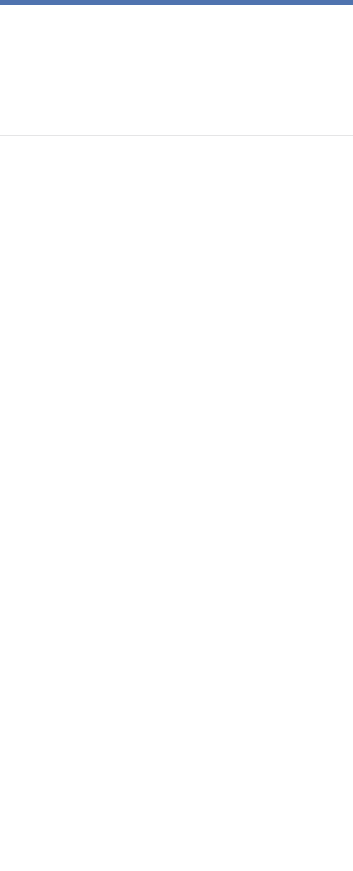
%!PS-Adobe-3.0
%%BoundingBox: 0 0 353 871
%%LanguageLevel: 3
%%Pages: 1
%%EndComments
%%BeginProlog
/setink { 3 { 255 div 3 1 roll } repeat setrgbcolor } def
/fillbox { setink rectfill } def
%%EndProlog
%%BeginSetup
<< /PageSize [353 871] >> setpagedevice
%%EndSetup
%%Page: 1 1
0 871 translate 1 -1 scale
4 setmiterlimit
0 0 353 871 255 255 255 fillbox
0 135 353 1 229 229 230 fillbox
0 0 353 5 79 115 175 fillbox
showpage
%%EOF
